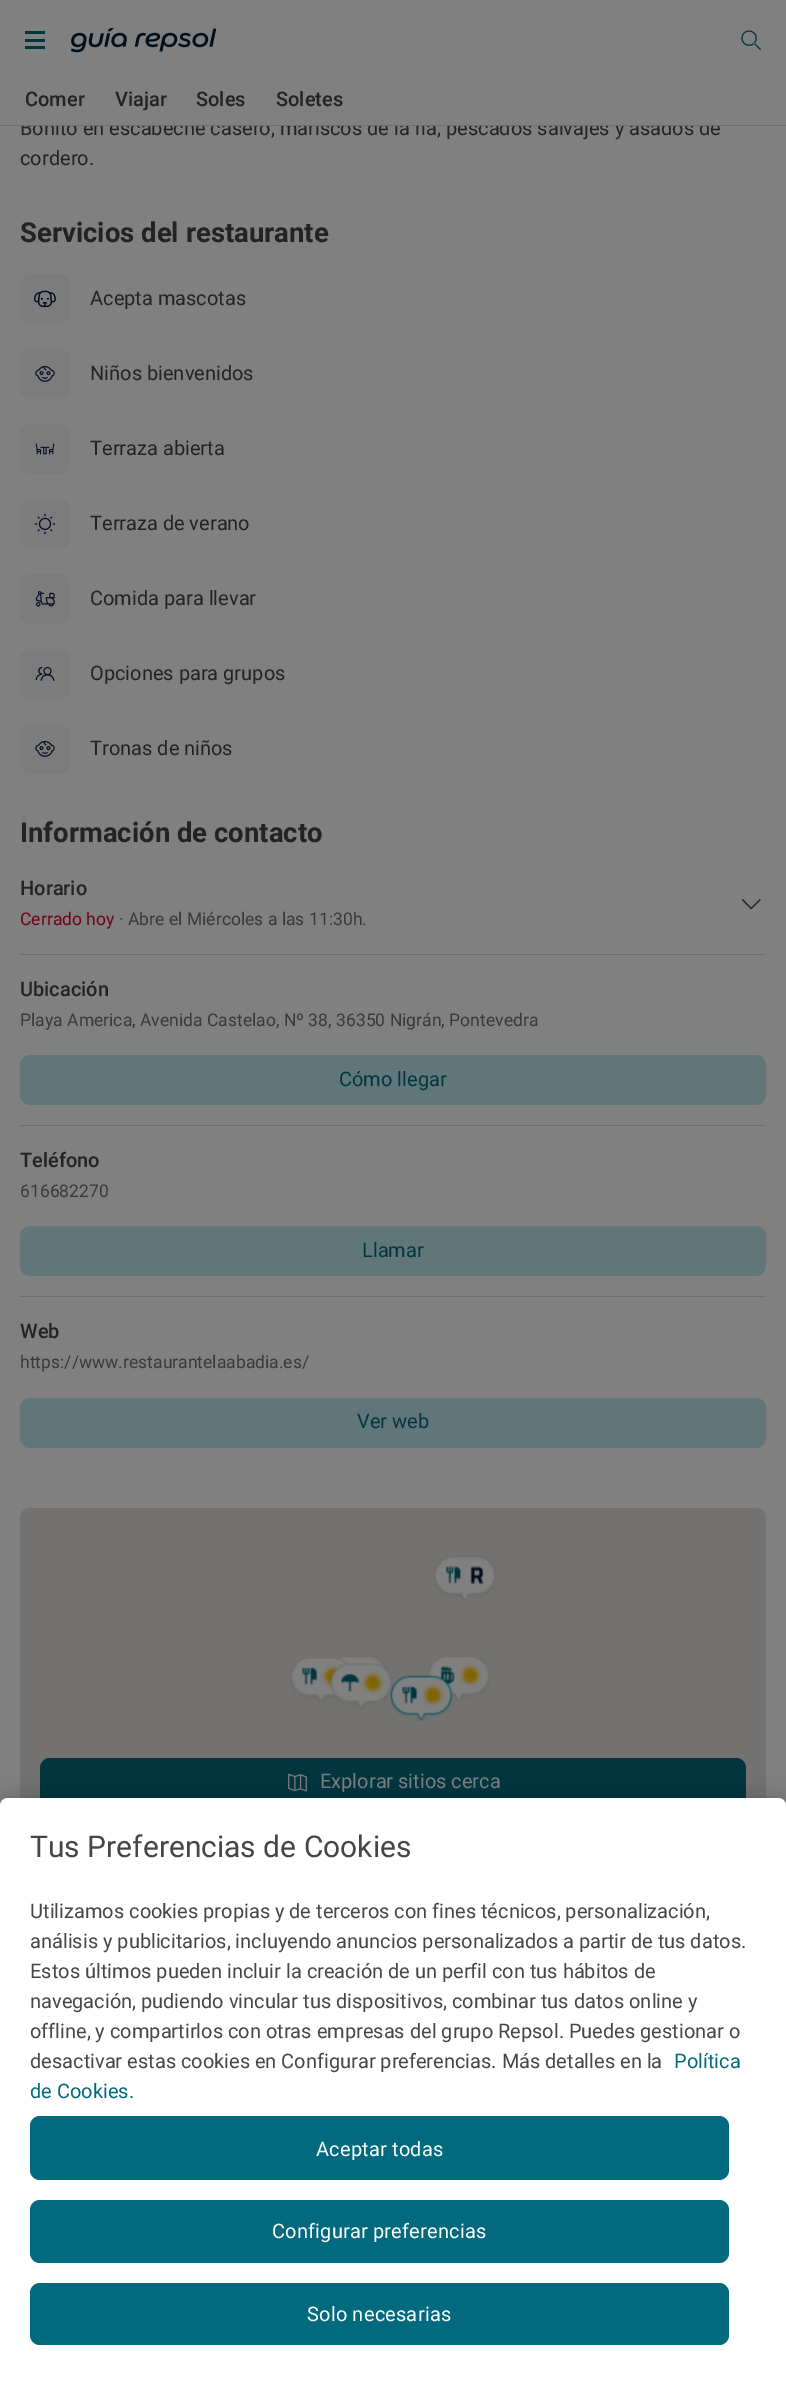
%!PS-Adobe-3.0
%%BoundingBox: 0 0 786 2404
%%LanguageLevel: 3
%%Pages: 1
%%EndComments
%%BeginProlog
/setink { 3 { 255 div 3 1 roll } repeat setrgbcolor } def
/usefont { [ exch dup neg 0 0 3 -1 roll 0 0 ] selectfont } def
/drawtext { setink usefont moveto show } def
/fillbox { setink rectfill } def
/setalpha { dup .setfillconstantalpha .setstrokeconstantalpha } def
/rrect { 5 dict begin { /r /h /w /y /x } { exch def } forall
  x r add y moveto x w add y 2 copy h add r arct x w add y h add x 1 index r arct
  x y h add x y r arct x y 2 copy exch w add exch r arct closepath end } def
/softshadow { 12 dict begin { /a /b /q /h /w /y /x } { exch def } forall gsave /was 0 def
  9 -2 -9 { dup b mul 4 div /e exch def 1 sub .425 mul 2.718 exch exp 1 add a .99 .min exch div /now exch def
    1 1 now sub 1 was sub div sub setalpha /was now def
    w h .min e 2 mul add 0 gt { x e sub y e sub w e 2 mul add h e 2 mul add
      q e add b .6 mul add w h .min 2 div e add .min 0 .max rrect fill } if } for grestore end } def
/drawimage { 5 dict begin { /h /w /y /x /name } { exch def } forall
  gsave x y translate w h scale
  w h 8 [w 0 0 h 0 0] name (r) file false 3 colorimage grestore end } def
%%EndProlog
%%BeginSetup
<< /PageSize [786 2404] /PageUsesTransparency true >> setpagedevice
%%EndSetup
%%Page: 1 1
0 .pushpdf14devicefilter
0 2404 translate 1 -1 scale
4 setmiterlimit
0 0 786 2404 128 128 128 fillbox
(Bonito en escabeche casero, mariscos de la ria, pescados salvajes y asados de) 20 135 /Roboto-Regular 20 35 35 35 drawtext
21 120 698 5 128 128 128 fillbox
0 125 786 1 111 111 111 fillbox
25 31 20 3 1 53 64 fillbox
25 39 20 3 1 53 64 fillbox
25 46 20 3 1 53 64 fillbox
(assets/img1.rgb) 71 28 145 25 drawimage
(assets/img2.rgb) 741 30 21 21 drawimage
(Comer) 25 106 /Roboto-Medium 20 35 35 35 drawtext
(Viajar) 115 106 /Roboto-Medium 20 35 35 35 drawtext
(Soles) 196 106 /Roboto-Medium 20 35 35 35 drawtext
(Soletes) 276 106 /Roboto-Medium 20 35 35 35 drawtext
(cordero.) 20 165 /Roboto-Regular 20 35 35 35 drawtext
(Servicios del restaurante) 20 242 /Roboto-Bold 27.5 35 35 35 drawtext
124 124 124 setink
20 274 50 50 10 rrect fill
(assets/img3.rgb) 34 290 22 18 drawimage
(Acepta mascotas) 90 305 /Roboto-Regular 20 35 35 35 drawtext
124 124 124 setink
20 349 50 50 10 rrect fill
(assets/img4.rgb) 35 366 20 16 drawimage
(Niños bienvenidos) 90 380 /Roboto-Regular 20 35 35 35 drawtext
124 124 124 setink
20 424 50 50 10 rrect fill
(assets/img5.rgb) 35 443 20 12 drawimage
(Terraza abierta) 90 455 /Roboto-Regular 20 35 35 35 drawtext
124 124 124 setink
20 499 50 50 10 rrect fill
(assets/img6.rgb) 34 513 22 21 drawimage
(Terraza de verano) 90 530 /Roboto-Regular 20 35 35 35 drawtext
124 124 124 setink
20 574 50 50 10 rrect fill
(assets/img7.rgb) 35 591 20 16 drawimage
(Comida para llevar) 90 605 /Roboto-Regular 20 35 35 35 drawtext
124 124 124 setink
20 649 50 50 10 rrect fill
(assets/img8.rgb) 35 666 20 15 drawimage
(Opciones para grupos) 90 680 /Roboto-Regular 20 35 35 35 drawtext
124 124 124 setink
20 724 50 50 10 rrect fill
(assets/img4.rgb) 35 741 20 16 drawimage
(Tronas de niños) 90 755 /Roboto-Regular 20 35 35 35 drawtext
(Información de contacto) 20 842 /Roboto-Bold 27.5 35 35 35 drawtext
20 954 746 1 111 111 111 fillbox
(Horario) 20 895 /Roboto-Medium 20 35 35 35 drawtext
/Roboto-Regular 17.5 usefont
114 0 22 setink
20 925 moveto 0.03 0 (Cerrado hoy) ashow
57 57 57 setink
119 925 moveto 0.03 0 (· Abre el Miércoles a las 11:30h.) ashow
(assets/img9.rgb) 741 899 20 11 drawimage
20 1125 746 1 111 111 111 fillbox
(Ubicación) 20 996 /Roboto-Medium 20 35 35 35 drawtext
/Roboto-Regular 17.5 usefont
57 57 57 setink
20 1026 moveto 0.03 0 (Playa America, Avenida Castelao, Nº 38, 36350 Nigrán, Pontevedra) ashow
96 118 121 setink
20 1055 746 50 10 rrect fill
(Cómo llegar) 339 1086 /Roboto-Regular 20 1 53 64 drawtext
20 1296 746 1 111 111 111 fillbox
(Teléfono) 20 1167 /Roboto-Medium 20 35 35 35 drawtext
/Roboto-Regular 17.5 usefont
57 57 57 setink
20 1197 moveto 0.03 0 (616682270) ashow
96 118 121 setink
20 1226 746 50 10 rrect fill
(Llamar) 362 1257 /Roboto-Regular 20 1 53 64 drawtext
(Web) 20 1338 /Roboto-Medium 20 35 35 35 drawtext
/Roboto-Regular 17.5 usefont
57 57 57 setink
20 1368 moveto 0.03 0 (https://www.restaurantelaabadia.es/) ashow
96 118 121 setink
20 1398 746 50 10 rrect fill
(Ver web) 357 1428 /Roboto-Regular 20 1 53 64 drawtext
115 114 112 setink
20 1508 746 320 10 rrect fill
(assets/img10.rgb) 434 1556 62 46 drawimage
(assets/img12.rgb) 333 1656 54 46 drawimage
(assets/img11.rgb) 290 1657 59 45 drawimage
(assets/img13.rgb) 428 1655 62 46 drawimage
(assets/img14.rgb) 330 1663 63 46 drawimage
(assets/img15.rgb) 390 1675 63 46 drawimage
1 53 64 setink
40 1758 706 50 10 rrect fill
(assets/img16.rgb) 288 1773 19 19 drawimage
(Explorar sitios cerca) 320 1788 /Roboto-Regular 20 128 128 128 drawtext
0 0 0 setink
0 1798 786 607 8 11 0.2 softshadow
255 255 255 setink
8 1798 moveto 778 1798 lineto 782.5 1798 786 1801.5 786 1806 curveto 786 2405 lineto 0 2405 lineto 0 1806 lineto 0 1801.5 3.5 1798 8 1798 curveto closepath fill
(Tus Preferencias de Cookies) 30 1857 /Roboto-Regular 30 70 70 70 drawtext
(Utilizamos cookies propias y de terceros con fines técnicos, personalización,) 30 1918 /Roboto-Regular 20 70 70 70 drawtext
(análisis y publicitarios, incluyendo anuncios personalizados a partir de tus datos.) 30 1948 /Roboto-Regular 20 70 70 70 drawtext
(Estos últimos pueden incluir la creación de un perfil con tus hábitos de) 30 1978 /Roboto-Regular 20 70 70 70 drawtext
(navegación, pudiendo vincular tus dispositivos, combinar tus datos online y) 30 2008 /Roboto-Regular 20 70 70 70 drawtext
(offline, y compartirlos con otras empresas del grupo Repsol. Puedes gestionar o) 30 2038 /Roboto-Regular 20 70 70 70 drawtext
(desactivar estas cookies en Configurar preferencias. Más detalles en la) 30 2068 /Roboto-Regular 20 70 70 70 drawtext
(Política) 674 2068 /Roboto-Regular 20 1 106 127 drawtext
(de Cookies.) 30 2098 /Roboto-Regular 20 1 106 127 drawtext
30 2116 699 64 10 rrect fill
255 255 255 setink
316 2156 moveto 0.2 0 (Aceptar todas) ashow
1 106 127 setink
30 2200 699 63 10 rrect fill
255 255 255 setink
272 2238 moveto 0.2 0 (Configurar preferencias) ashow
1 106 127 setink
30 2283 699 62 10 rrect fill
255 255 255 setink
307 2321 moveto 0.2 0 (Solo necesarias) ashow
.poppdf14devicefilter showpage
%%EOF
